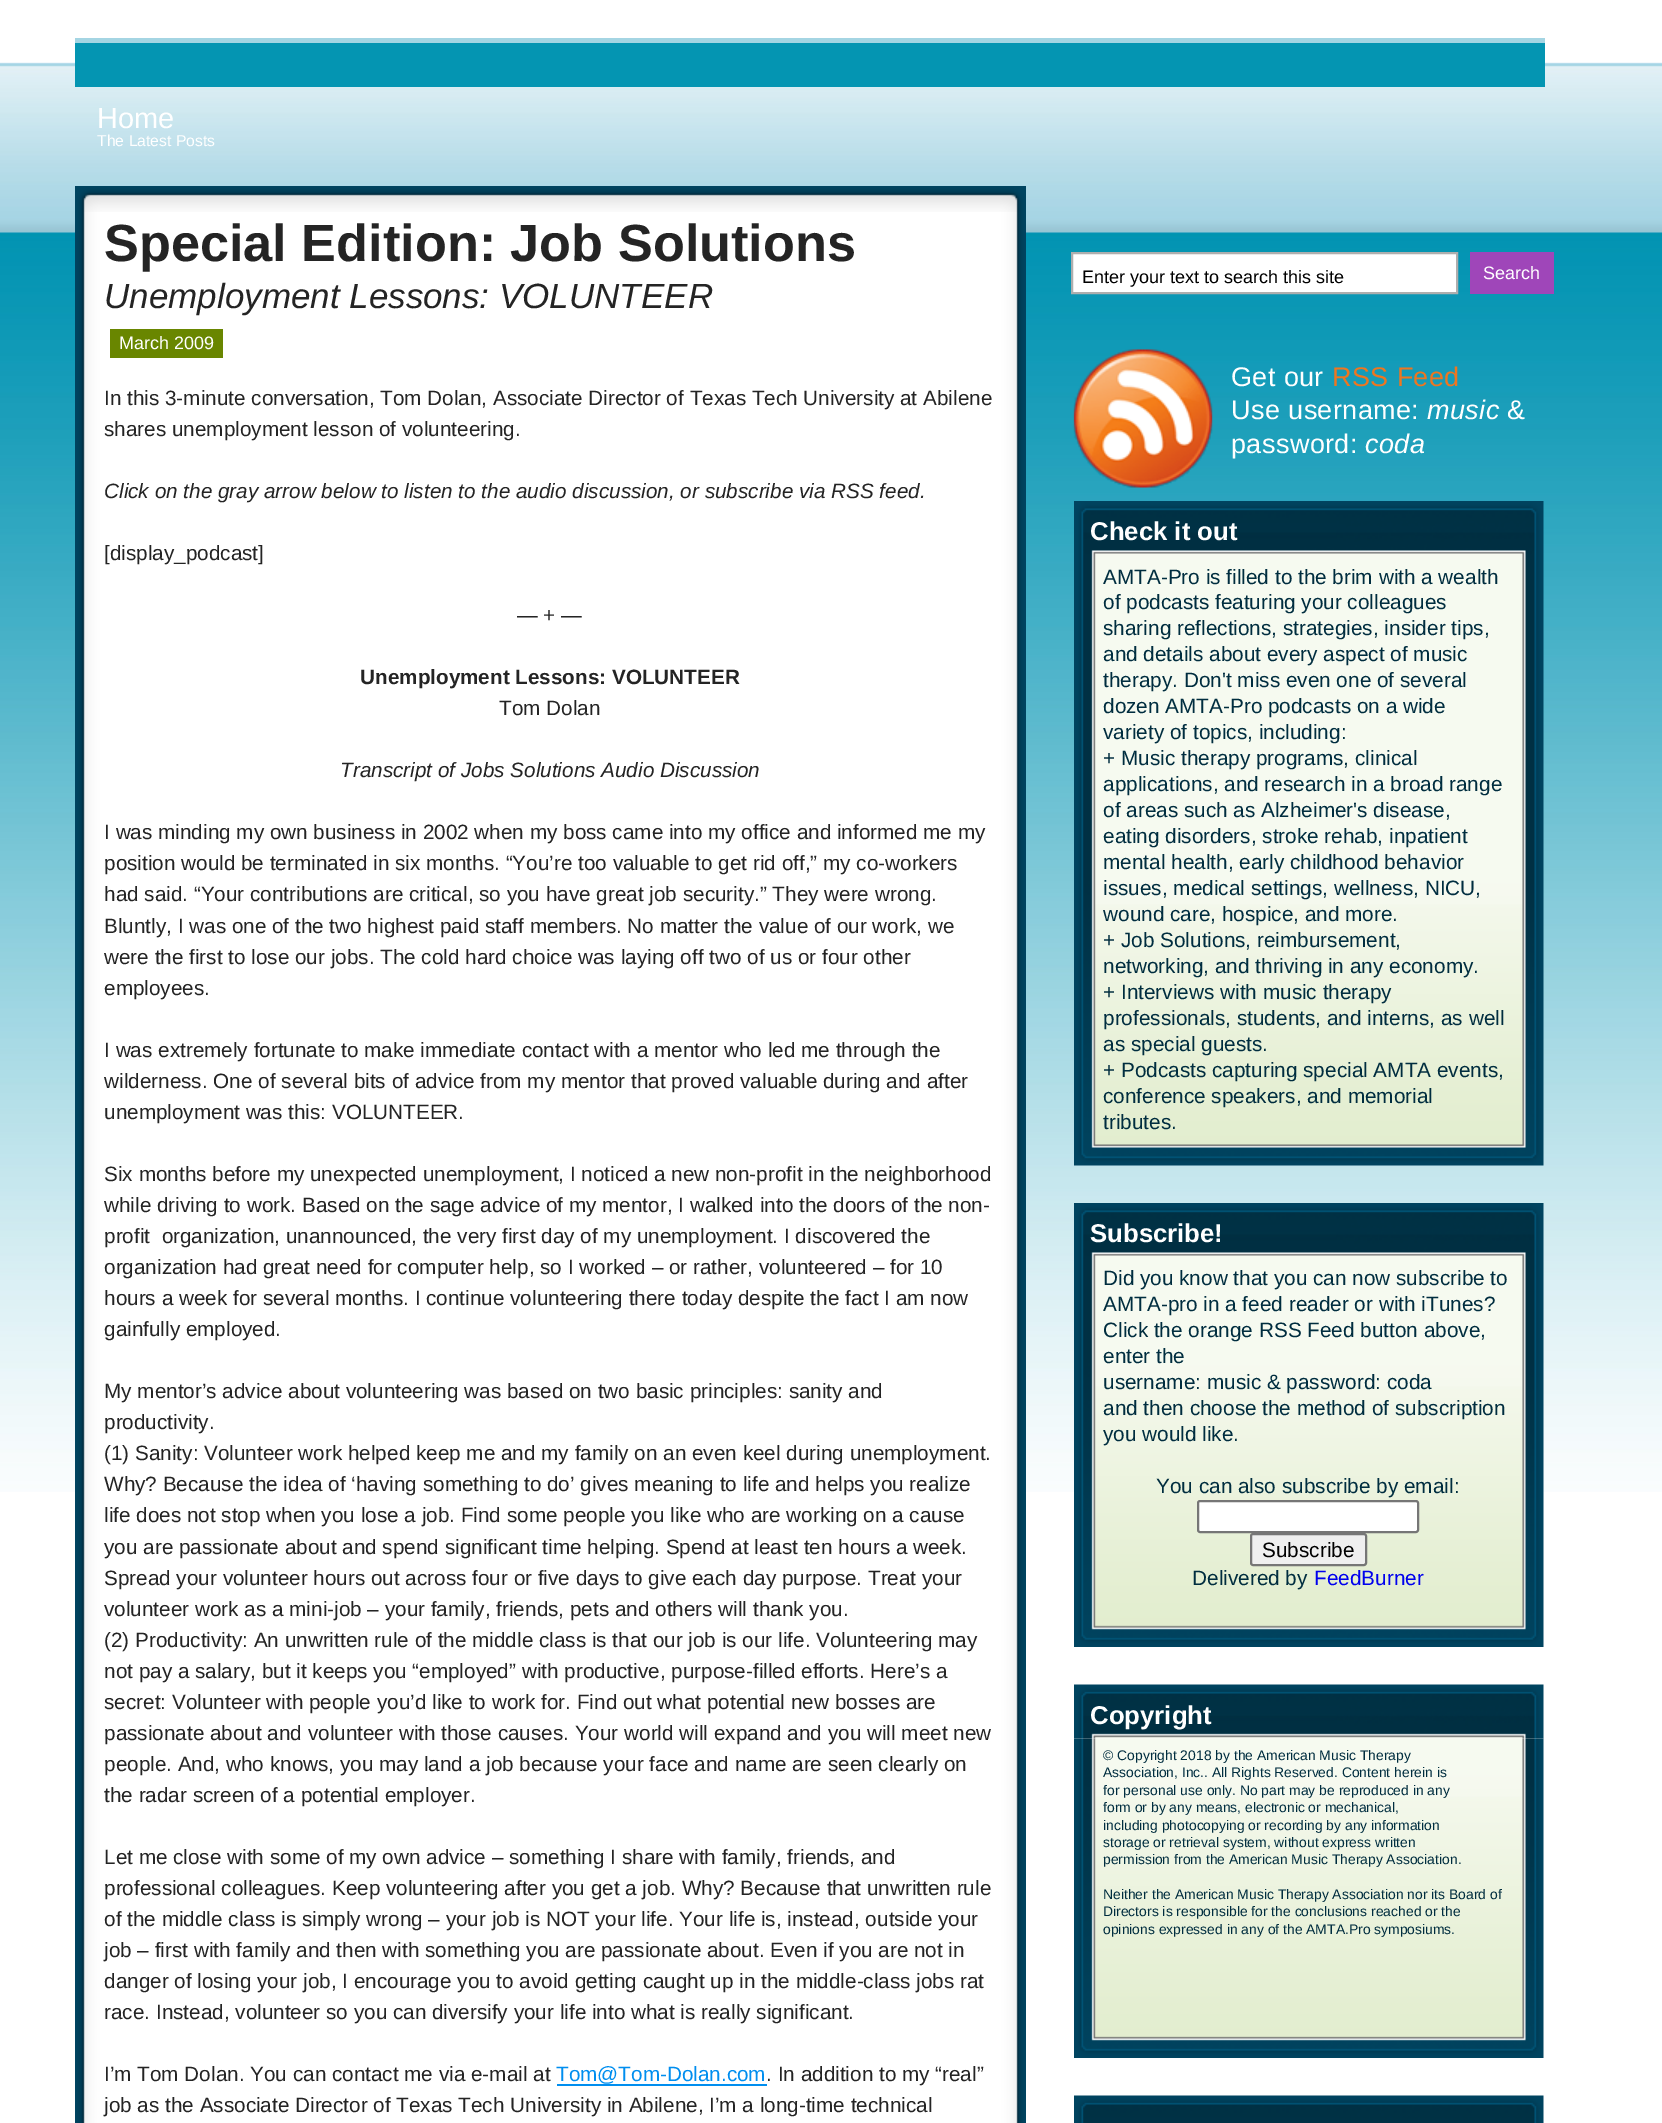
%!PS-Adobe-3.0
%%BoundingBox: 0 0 1662 2123
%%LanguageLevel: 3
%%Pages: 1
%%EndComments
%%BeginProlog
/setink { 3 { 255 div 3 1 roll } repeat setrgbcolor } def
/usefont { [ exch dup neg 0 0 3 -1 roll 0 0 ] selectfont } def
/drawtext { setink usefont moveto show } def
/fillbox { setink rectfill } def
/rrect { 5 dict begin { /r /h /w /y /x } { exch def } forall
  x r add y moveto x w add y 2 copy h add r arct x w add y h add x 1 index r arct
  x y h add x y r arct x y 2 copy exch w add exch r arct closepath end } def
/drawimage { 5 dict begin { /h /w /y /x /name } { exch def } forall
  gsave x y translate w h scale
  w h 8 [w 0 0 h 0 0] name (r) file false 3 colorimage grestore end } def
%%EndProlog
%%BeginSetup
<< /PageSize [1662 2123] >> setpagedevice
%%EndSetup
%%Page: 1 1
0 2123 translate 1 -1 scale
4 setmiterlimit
0 0 1662 2123 255 255 255 fillbox
(assets/img1.rgb) 0 62 1662 1430 drawimage
75 43 1470 44 4 149 178 fillbox
75 38 1470 5 164 213 227 fillbox
(Home) 97 128 /LiberationSans-Regular 29 255 255 255 drawtext
(The Latest Posts) 97 146 /LiberationSans-Regular 15.75 255 255 255 drawtext
(assets/img2.rgb) 75 212 951 1911 drawimage
(assets/img3.rgb) 75 186 951 26 drawimage
(Special Edition: Job Solutions) 104 261 /LiberationSans-Bold 52.25 36 36 36 drawtext
(Unemployment Lessons: VOLUNTEER) 104 308 /LiberationSans-Italic 35 36 36 36 drawtext
110 329 113 29 105 134 0 fillbox
(March 2009) 119 349 /LiberationSans-Regular 18 255 255 255 drawtext
(In this 3-minute conversation, Tom Dolan, Associate Director of Texas Tech University at Abilene) 104 405 /LiberationSans-Regular 20.7 36 36 36 drawtext
(shares unemployment lesson of volunteering.) 104 436 /LiberationSans-Regular 20.7 36 36 36 drawtext
(Click on the gray arrow below to listen to the audio discussion, or subscribe via RSS feed.) 104 498 /LiberationSans-Italic 20.7 36 36 36 drawtext
([display_podcast]) 104 560 /LiberationSans-Regular 20.7 36 36 36 drawtext
(— + —) 517 622 /LiberationSans-Regular 20.7 36 36 36 drawtext
(Unemployment Lessons: VOLUNTEER) 360 684 /LiberationSans-Bold 20.7 36 36 36 drawtext
(Tom Dolan) 499 715 /LiberationSans-Regular 20.7 36 36 36 drawtext
(Transcript of Jobs Solutions Audio Discussion) 340 777 /LiberationSans-Italic 20.7 36 36 36 drawtext
(I was minding my own business in 2002 when my boss came into my office and informed me my) 104 839 /LiberationSans-Regular 20.7 36 36 36 drawtext
(position would be terminated in six months. “You’re too valuable to get rid off,” my co-workers) 104 870 /LiberationSans-Regular 20.7 36 36 36 drawtext
(had said. “Your contributions are critical, so you have great job security.” They were wrong.) 104 901 /LiberationSans-Regular 20.7 36 36 36 drawtext
(Bluntly, I was one of the two highest paid staff members. No matter the value of our work, we) 104 933 /LiberationSans-Regular 20.7 36 36 36 drawtext
(were the first to lose our jobs. The cold hard choice was laying off two of us or four other) 104 964 /LiberationSans-Regular 20.7 36 36 36 drawtext
(employees.) 104 995 /LiberationSans-Regular 20.7 36 36 36 drawtext
(I was extremely fortunate to make immediate contact with a mentor who led me through the) 104 1057 /LiberationSans-Regular 20.7 36 36 36 drawtext
(wilderness. One of several bits of advice from my mentor that proved valuable during and after) 104 1088 /LiberationSans-Regular 20.7 36 36 36 drawtext
(unemployment was this: VOLUNTEER.) 104 1119 /LiberationSans-Regular 20.7 36 36 36 drawtext
(Six months before my unexpected unemployment, I noticed a new non-profit in the neighborhood) 104 1181 /LiberationSans-Regular 20.7 36 36 36 drawtext
(while driving to work. Based on the sage advice of my mentor, I walked into the doors of the non-) 104 1212 /LiberationSans-Regular 20.7 36 36 36 drawtext
(profit  organization, unannounced, the very first day of my unemployment. I discovered the) 104 1243 /LiberationSans-Regular 20.7 36 36 36 drawtext
(organization had great need for computer help, so I worked – or rather, volunteered – for 10) 104 1274 /LiberationSans-Regular 20.7 36 36 36 drawtext
(hours a week for several months. I continue volunteering there today despite the fact I am now) 104 1305 /LiberationSans-Regular 20.7 36 36 36 drawtext
(gainfully employed.) 104 1336 /LiberationSans-Regular 20.7 36 36 36 drawtext
(My mentor’s advice about volunteering was based on two basic principles: sanity and) 104 1398 /LiberationSans-Regular 20.7 36 36 36 drawtext
(productivity.) 104 1429 /LiberationSans-Regular 20.7 36 36 36 drawtext
(\(1\) Sanity: Volunteer work helped keep me and my family on an even keel during unemployment.) 104 1460 /LiberationSans-Regular 20.7 36 36 36 drawtext
(Why? Because the idea of ‘having something to do’ gives meaning to life and helps you realize) 104 1491 /LiberationSans-Regular 20.7 36 36 36 drawtext
(life does not stop when you lose a job. Find some people you like who are working on a cause) 104 1522 /LiberationSans-Regular 20.7 36 36 36 drawtext
(you are passionate about and spend significant time helping. Spend at least ten hours a week.) 104 1554 /LiberationSans-Regular 20.7 36 36 36 drawtext
(Spread your volunteer hours out across four or five days to give each day purpose. Treat your) 104 1585 /LiberationSans-Regular 20.7 36 36 36 drawtext
(volunteer work as a mini-job – your family, friends, pets and others will thank you.) 104 1616 /LiberationSans-Regular 20.7 36 36 36 drawtext
(\(2\) Productivity: An unwritten rule of the middle class is that our job is our life. Volunteering may) 104 1647 /LiberationSans-Regular 20.7 36 36 36 drawtext
(not pay a salary, but it keeps you “employed” with productive, purpose-filled efforts. Here’s a) 104 1678 /LiberationSans-Regular 20.7 36 36 36 drawtext
(secret: Volunteer with people you’d like to work for. Find out what potential new bosses are) 104 1709 /LiberationSans-Regular 20.7 36 36 36 drawtext
(passionate about and volunteer with those causes. Your world will expand and you will meet new) 104 1740 /LiberationSans-Regular 20.7 36 36 36 drawtext
(people. And, who knows, you may land a job because your face and name are seen clearly on) 104 1771 /LiberationSans-Regular 20.7 36 36 36 drawtext
(the radar screen of a potential employer.) 104 1802 /LiberationSans-Regular 20.7 36 36 36 drawtext
(Let me close with some of my own advice – something I share with family, friends, and) 104 1864 /LiberationSans-Regular 20.7 36 36 36 drawtext
(professional colleagues. Keep volunteering after you get a job. Why? Because that unwritten rule) 104 1895 /LiberationSans-Regular 20.7 36 36 36 drawtext
(of the middle class is simply wrong – your job is NOT your life. Your life is, instead, outside your) 104 1926 /LiberationSans-Regular 20.7 36 36 36 drawtext
(job – first with family and then with something you are passionate about. Even if you are not in) 104 1957 /LiberationSans-Regular 20.7 36 36 36 drawtext
(danger of losing your job, I encourage you to avoid getting caught up in the middle-class jobs rat) 104 1988 /LiberationSans-Regular 20.7 36 36 36 drawtext
(race. Instead, volunteer so you can diversify your life into what is really significant.) 104 2019 /LiberationSans-Regular 20.7 36 36 36 drawtext
(I’m Tom Dolan. You can contact me via e-mail at) 104 2081 /LiberationSans-Regular 20.7 36 36 36 drawtext
(Tom@Tom-Dolan.com) 556 2081 /LiberationSans-Regular 20.7 0 142 239 drawtext
557 2084 210 2 0 142 239 fillbox
(. In addition to my “real”) 766 2081 /LiberationSans-Regular 20.7 36 36 36 drawtext
(job as the Associate Director of Texas Tech University in Abilene, I’m a long-time technical) 104 2112 /LiberationSans-Regular 20.7 36 36 36 drawtext
255 255 255 setink
1072 253 moveto 1457 253 lineto 1457 293 lineto 1072 293 lineto closepath gsave fill grestore
174 174 174 setink
2 setlinewidth
stroke
(Enter your text to search this site) 1082 283 /LiberationSans-Regular 18 0 0 0 drawtext
1470 252 84 42 159 70 185 fillbox
(Search) 1483 279 /LiberationSans-Regular 18 255 255 255 drawtext
(assets/img4.rgb) 1073 349 140 139 drawimage
/LiberationSans-Regular 27 usefont
1231 386 moveto 0.4 0 (Get our) ashow
238 118 32 setink
1332 386 moveto 0.4 0 (RSS Feed) ashow
255 255 255 setink
1231 419 moveto 0.4 0 (Use username:) ashow
/LiberationSans-Italic 27 usefont
1427 419 moveto 0.4 0 (music) ashow
/LiberationSans-Regular 27 usefont
1507 419 moveto 0.4 0 (&) ashow
1231 453 moveto 0.4 0 (password:) ashow
/LiberationSans-Italic 27 usefont
1365 453 moveto 0.4 0 (coda) ashow
(assets/img5.rgb) 1074 501 470 54 drawimage
(Check it out) 1090 540 /LiberationSans-Bold 25.75 255 255 255 drawtext
(assets/img6.rgb) 1074 555 470 611 drawimage
(AMTA-Pro is filled to the brim with a wealth) 1103 584 /LiberationSans-Regular 20.75 0 45 63 drawtext
(of podcasts featuring your colleagues) 1103 609 /LiberationSans-Regular 20.75 0 45 63 drawtext
(sharing reflections, strategies, insider tips,) 1103 635 /LiberationSans-Regular 20.75 0 45 63 drawtext
(and details about every aspect of music) 1103 661 /LiberationSans-Regular 20.75 0 45 63 drawtext
(therapy. Don't miss even one of several) 1103 687 /LiberationSans-Regular 20.75 0 45 63 drawtext
(dozen AMTA-Pro podcasts on a wide) 1103 713 /LiberationSans-Regular 20.75 0 45 63 drawtext
(variety of topics, including:) 1103 739 /LiberationSans-Regular 20.75 0 45 63 drawtext
(+ Music therapy programs, clinical) 1103 765 /LiberationSans-Regular 20.75 0 45 63 drawtext
(applications, and research in a broad range) 1103 791 /LiberationSans-Regular 20.75 0 45 63 drawtext
(of areas such as Alzheimer's disease,) 1103 817 /LiberationSans-Regular 20.75 0 45 63 drawtext
(eating disorders, stroke rehab, inpatient) 1103 843 /LiberationSans-Regular 20.75 0 45 63 drawtext
(mental health, early childhood behavior) 1103 869 /LiberationSans-Regular 20.75 0 45 63 drawtext
(issues, medical settings, wellness, NICU,) 1103 895 /LiberationSans-Regular 20.75 0 45 63 drawtext
(wound care, hospice, and more.) 1103 921 /LiberationSans-Regular 20.75 0 45 63 drawtext
(+ Job Solutions, reimbursement,) 1103 947 /LiberationSans-Regular 20.75 0 45 63 drawtext
(networking, and thriving in any economy.) 1103 973 /LiberationSans-Regular 20.75 0 45 63 drawtext
(+ Interviews with music therapy) 1103 999 /LiberationSans-Regular 20.75 0 45 63 drawtext
(professionals, students, and interns, as well) 1103 1025 /LiberationSans-Regular 20.75 0 45 63 drawtext
(as special guests.) 1103 1051 /LiberationSans-Regular 20.75 0 45 63 drawtext
(+ Podcasts capturing special AMTA events,) 1103 1077 /LiberationSans-Regular 20.75 0 45 63 drawtext
(conference speakers, and memorial) 1103 1103 /LiberationSans-Regular 20.75 0 45 63 drawtext
(tributes.) 1103 1129 /LiberationSans-Regular 20.75 0 45 63 drawtext
(assets/img7.rgb) 1074 1203 470 54 drawimage
(Subscribe!) 1090 1242 /LiberationSans-Bold 25.75 255 255 255 drawtext
(assets/img8.rgb) 1074 1257 470 390 drawimage
(Did you know that you can now subscribe to) 1103 1285 /LiberationSans-Regular 20.75 0 45 63 drawtext
(AMTA-pro in a feed reader or with iTunes?) 1103 1311 /LiberationSans-Regular 20.75 0 45 63 drawtext
(Click the orange RSS Feed button above,) 1103 1337 /LiberationSans-Regular 20.75 0 45 63 drawtext
(enter the) 1103 1363 /LiberationSans-Regular 20.75 0 45 63 drawtext
(username: music & password: coda) 1103 1389 /LiberationSans-Regular 20.75 0 45 63 drawtext
(and then choose the method of subscription) 1103 1415 /LiberationSans-Regular 20.75 0 45 63 drawtext
(you would like.) 1103 1441 /LiberationSans-Regular 20.75 0 45 63 drawtext
(You can also subscribe by email:) 1156 1493 /LiberationSans-Regular 20.75 0 45 63 drawtext
255 255 255 setink
1198 1501 220 31 2 rrect gsave fill grestore
118 118 118 setink
stroke
239 239 239 setink
1251 1534 115 31 2 rrect gsave fill grestore
118 118 118 setink
stroke
(Subscribe) 1262 1557 /LiberationSans-Regular 20.75 0 0 0 drawtext
(Delivered by) 1192 1585 /LiberationSans-Regular 20.75 0 45 63 drawtext
(FeedBurner) 1314 1585 /LiberationSans-Regular 20.75 0 0 238 drawtext
(assets/img9.rgb) 1074 1684 470 55 drawimage
(Copyright) 1090 1724 /LiberationSans-Bold 25.75 255 255 255 drawtext
(assets/img10.rgb) 1074 1738 470 320 drawimage
(© Copyright 2018 by the American Music Therapy) 1103 1760 /LiberationSans-Regular 13.9 0 45 63 drawtext
(Association, Inc.. All Rights Reserved. Content herein is) 1103 1777 /LiberationSans-Regular 13.9 0 45 63 drawtext
(for personal use only. No part may be reproduced in any) 1103 1795 /LiberationSans-Regular 13.9 0 45 63 drawtext
(form or by any means, electronic or mechanical,) 1103 1812 /LiberationSans-Regular 13.9 0 45 63 drawtext
(including photocopying or recording by any information) 1103 1830 /LiberationSans-Regular 13.9 0 45 63 drawtext
(storage or retrieval system, without express written) 1103 1847 /LiberationSans-Regular 13.9 0 45 63 drawtext
(permission from the American Music Therapy Association.) 1103 1864 /LiberationSans-Regular 13.9 0 45 63 drawtext
(Neither the American Music Therapy Association nor its Board of) 1103 1899 /LiberationSans-Regular 13.9 0 45 63 drawtext
(Directors is responsible for the conclusions reached or the) 1103 1916 /LiberationSans-Regular 13.9 0 45 63 drawtext
(opinions expressed in any of the AMTA.Pro symposiums.) 1103 1934 /LiberationSans-Regular 13.9 0 45 63 drawtext
(assets/img11.rgb) 1074 2095 470 28 drawimage
showpage
%%EOF
